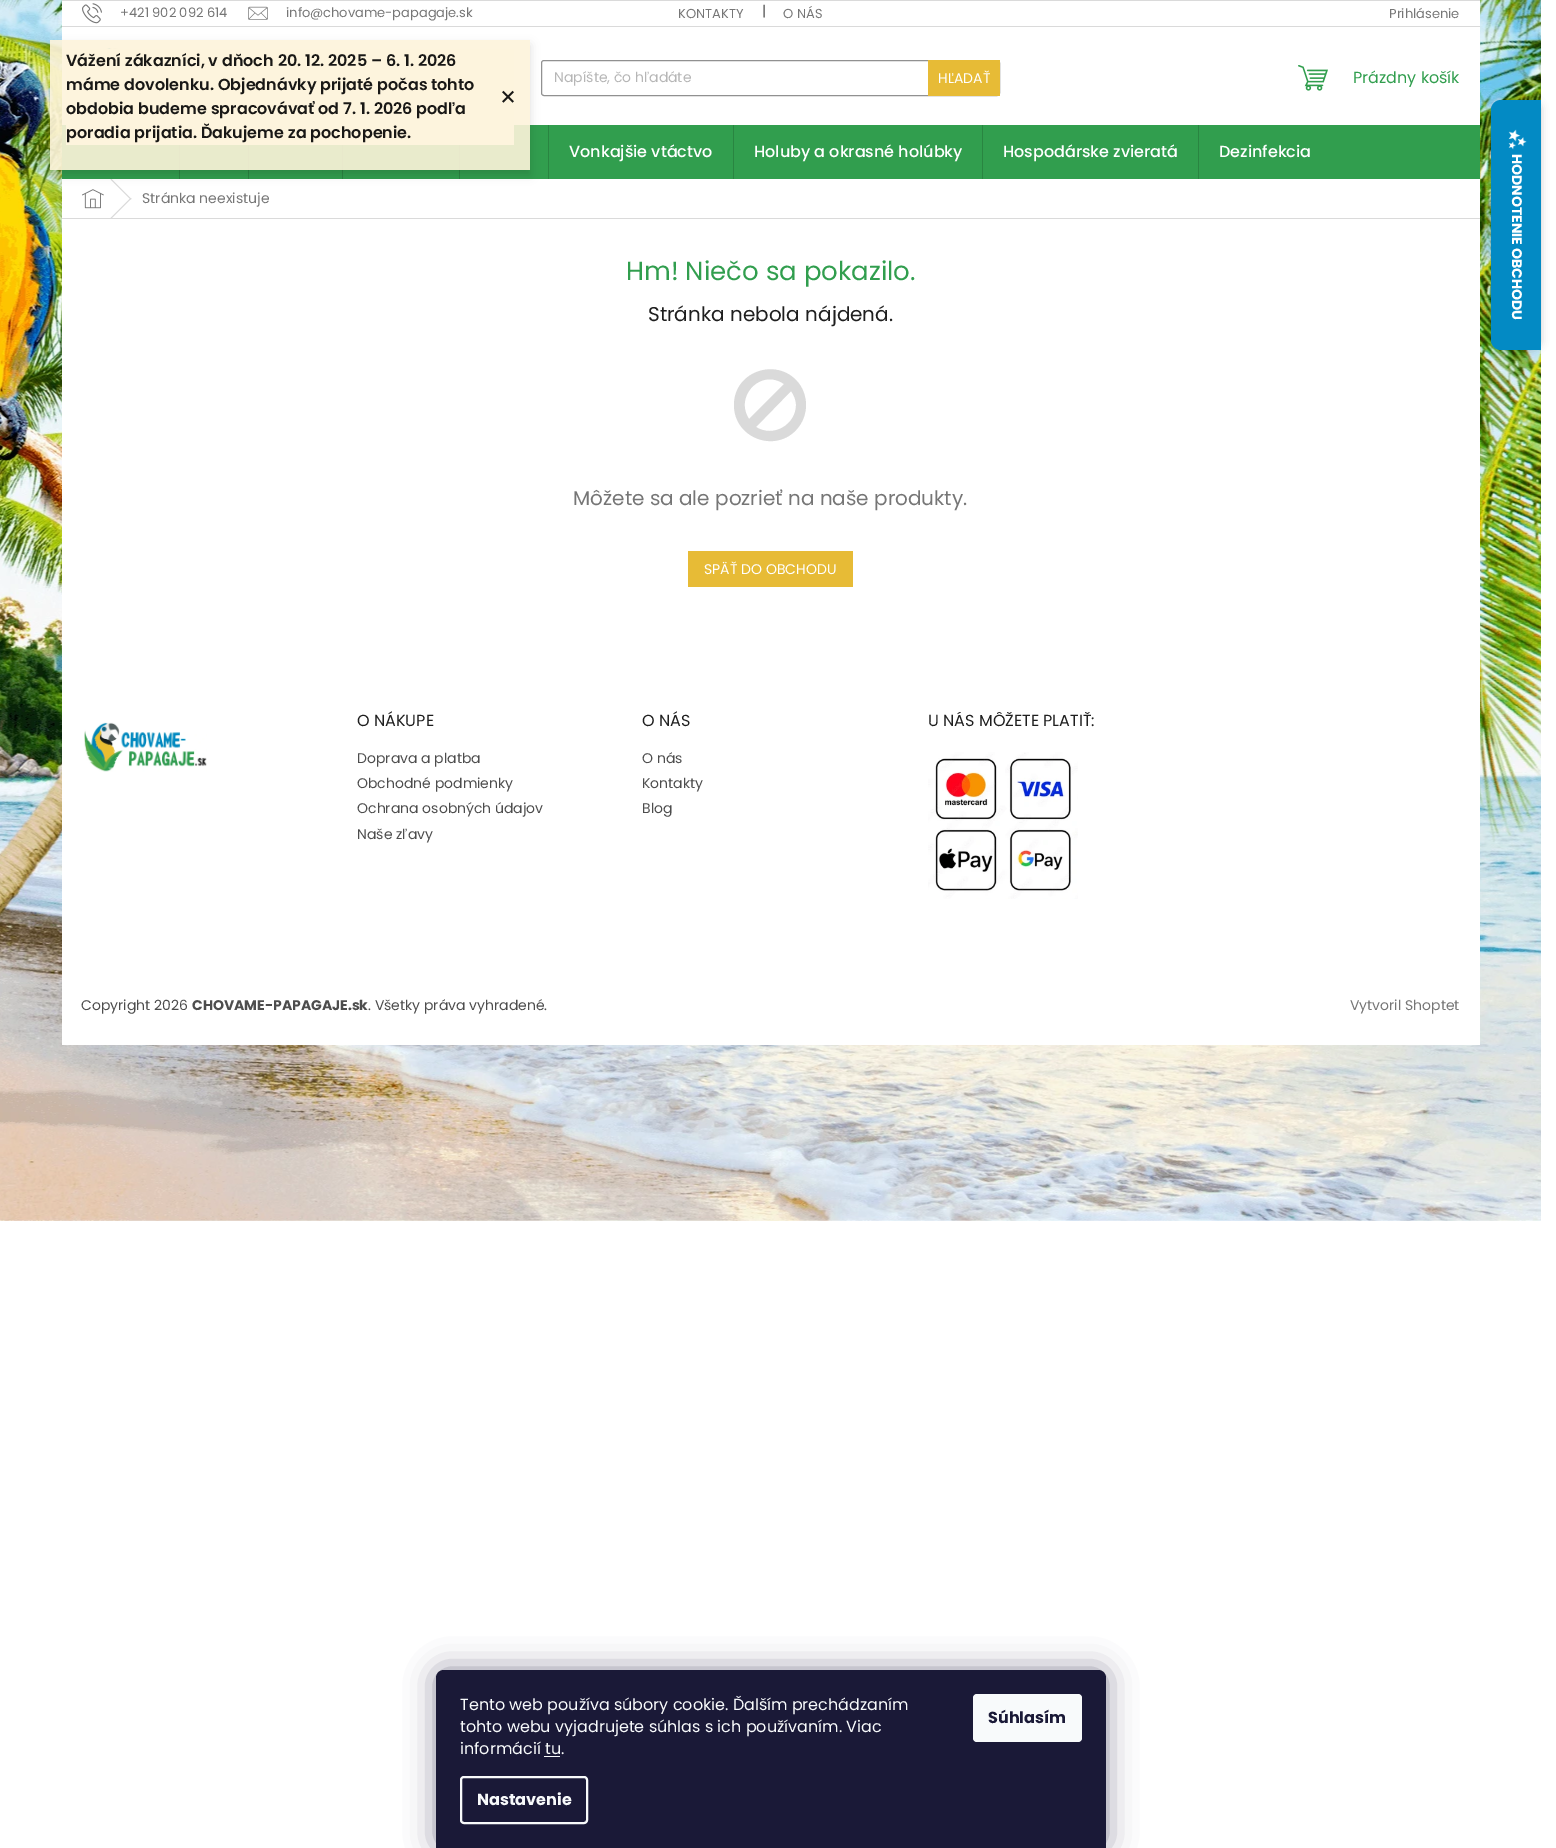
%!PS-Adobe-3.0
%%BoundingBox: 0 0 1556 1848
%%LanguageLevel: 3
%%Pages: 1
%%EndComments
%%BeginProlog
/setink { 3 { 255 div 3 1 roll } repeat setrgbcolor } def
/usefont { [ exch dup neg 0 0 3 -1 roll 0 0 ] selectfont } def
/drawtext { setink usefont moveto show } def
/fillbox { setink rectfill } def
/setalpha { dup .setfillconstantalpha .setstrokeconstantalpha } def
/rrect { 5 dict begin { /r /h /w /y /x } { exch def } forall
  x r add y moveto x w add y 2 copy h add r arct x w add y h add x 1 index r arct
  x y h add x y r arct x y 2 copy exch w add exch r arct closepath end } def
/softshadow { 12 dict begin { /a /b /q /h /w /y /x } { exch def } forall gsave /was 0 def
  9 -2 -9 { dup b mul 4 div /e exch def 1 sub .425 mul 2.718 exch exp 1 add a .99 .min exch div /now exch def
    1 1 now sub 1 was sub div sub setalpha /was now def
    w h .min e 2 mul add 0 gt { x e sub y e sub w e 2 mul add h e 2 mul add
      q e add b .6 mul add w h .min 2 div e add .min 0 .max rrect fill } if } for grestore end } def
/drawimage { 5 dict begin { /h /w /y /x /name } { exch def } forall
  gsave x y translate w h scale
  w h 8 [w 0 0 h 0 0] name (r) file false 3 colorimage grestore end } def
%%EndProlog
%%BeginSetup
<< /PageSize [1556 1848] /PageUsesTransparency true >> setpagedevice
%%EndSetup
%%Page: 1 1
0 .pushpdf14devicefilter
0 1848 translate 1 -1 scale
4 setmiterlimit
0 0 1556 1848 255 255 255 fillbox
(assets/img1.rgb) 0 0 1541 1221 drawimage
62 1 1418 25 255 255 255 fillbox
62 0 1418 1 218 218 218 fillbox
62 26 1418 1 218 218 218 fillbox
(assets/img2.rgb) 82 3 20 21 drawimage
(+421 902 092 614) 120 17 /Poppins-Regular 13 118 118 118 drawtext
(assets/img3.rgb) 248 6 20 14 drawimage
(info@chovame-papagaje.sk) 286 17 /Poppins-Regular 13 118 118 118 drawtext
(KONTAKTY) 678 18 /Poppins-Regular 13 118 118 118 drawtext
(|) 762 16 /Poppins-Regular 14 77 77 77 drawtext
(O NÁS) 783 18 /Poppins-Regular 13 118 118 118 drawtext
(Prihlásenie) 1389 18 /Poppins-Regular 13 118 118 118 drawtext
62 27 1418 98 255 255 255 fillbox
(assets/img5.rgb) 84 48 140 55 drawimage
145 145 145 setink
541.5 60.5 458 35 2.5 rrect stroke
62 125 1418 54 49 158 78 fillbox
179 125 1 54 41 133 65 fillbox
248 125 1 54 41 133 65 fillbox
342 125 1 54 41 133 65 fillbox
459 125 1 54 41 133 65 fillbox
62 179 1418 39 255 255 255 fillbox
(assets/img7.rgb) 82 189 22 20 drawimage
218 218 218 setink
110.5 179.5 moveto 111.5 179 lineto 131.5 199 lineto 130.5 199.5 lineto closepath fill
gsave
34 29 moveto 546 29 lineto 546 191 lineto 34 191 lineto closepath 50 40 moveto 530 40 lineto 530 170 lineto 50 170 lineto closepath eoclip newpath
0 0 0 setink
50 45 480 130 0 5 0.14 softshadow
grestore
0.9 setalpha
50 40 480 130 253 243 218 fillbox
66 49 448 96 255 255 255 fillbox
66 49 448 96 253 243 218 fillbox
1 setalpha
(Vážení zákazníci, v dňoch 20. 12. 2025 – 6. 1. 2026) 66 66 /Poppins-SemiBold 16 25 24 22 drawtext
(máme dovolenku. Objednávky prijaté počas tohto) 66 90 /Poppins-SemiBold 16 25 24 22 drawtext
(obdobia budeme spracovávať od 7. 1. 2026 podľa) 66 114 /Poppins-SemiBold 16 25 24 22 drawtext
(poradia prijatia. Ďakujeme za pochopenie.) 66 138 /Poppins-SemiBold 16 25 24 22 drawtext
(assets/img4.rgb) 502 90 12 13 drawimage
(Napíšte, čo hľadáte) 554 82 /Poppins-Regular 14 182 182 182 drawtext
928 60 72 36 231 187 54 fillbox
(HĽADAŤ) 938 83 /Poppins-Regular 14 255 255 255 drawtext
(assets/img6.rgb) 1298 65 30 26 drawimage
(Prázdny košík) 1353 83 /Poppins-Regular 16 49 158 78 drawtext
548 125 1 54 41 133 65 fillbox
(Vonkajšie vtáctvo) 569 157 /Poppins-Medium 16 255 255 255 drawtext
733 125 1 54 41 133 65 fillbox
(Holuby a okrasné holúbky) 754 157 /Poppins-Medium 16 255 255 255 drawtext
982 125 1 54 41 133 65 fillbox
(Hospodárske zvieratá) 1003 157 /Poppins-Medium 16 255 255 255 drawtext
1198 125 1 54 41 133 65 fillbox
(Dezinfekcia) 1219 157 /Poppins-Medium 16 255 255 255 drawtext
62 218 1418 1 218 218 218 fillbox
130.5 198 moveto 131.5 198.5 lineto 111.5 218.5 lineto 110.5 218 lineto closepath fill
(Stránka neexistuje) 142 203 /Poppins-Regular 14 118 118 118 drawtext
62 219 1418 406 255 255 255 fillbox
(Hm! Niečo sa pokazilo.) 626 280 /Poppins-Regular 26 49 158 78 drawtext
(Stránka nebola nájdená.) 648 321 /Poppins-Regular 20 31 31 31 drawtext
218 218 218 setink
796 405 moveto 796 400 794 395 791 391 curveto 756 427 lineto 773 438 796 425 796 405 curveto closepath 749 419 moveto 784 384 lineto 761 368 734 396 749 419 curveto closepath 806 405 moveto 806 412 804 419 800 425 curveto 780 455 734 440 734 405 curveto 734 370 780 356 800 385 curveto 804 391 806 398 806 405 curveto closepath fill
(Môžete sa ale pozrieť na naše produkty.) 573 505 /Poppins-Regular 20 118 118 118 drawtext
688 551 165 36 231 187 54 fillbox
(SPÄŤ DO OBCHODU) 704 574 /Poppins-Regular 14 255 255 255 drawtext
62 625 1418 420 255 255 255 fillbox
(assets/img8.rgb) 84 722 123 50 drawimage
(O NÁKUPE) 357 726 /Poppins-Regular 16 31 31 31 drawtext
(Doprava a platba) 357 763 /Poppins-Regular 14 77 77 77 drawtext
(Obchodné podmienky) 357 788 /Poppins-Regular 14 77 77 77 drawtext
(Ochrana osobných údajov) 357 813 /Poppins-Regular 14 77 77 77 drawtext
(Naše zľavy) 357 839 /Poppins-Regular 14 77 77 77 drawtext
(O NÁS) 642 726 /Poppins-Regular 16 31 31 31 drawtext
(O nás) 642 763 /Poppins-Regular 14 77 77 77 drawtext
(Kontakty) 642 788 /Poppins-Regular 14 77 77 77 drawtext
(Blog) 642 813 /Poppins-Regular 14 77 77 77 drawtext
gsave
928 712 246 206 rectclip
(U NÁS MÔŽETE PLATIŤ:) 928 726 /Poppins-Regular 16 31 31 31 drawtext
grestore
(assets/img9.rgb) 928 752 150 147 drawimage
(Copyright 2026) 81 1010 /Poppins-Regular 14 77 77 77 drawtext
(CHOVAME-PAPAGAJE.sk) 192 1010 /Poppins-Bold 14 77 77 77 drawtext
(. Všetky práva vyhradené.) 368 1010 /Poppins-Regular 14 77 77 77 drawtext
(Vytvoril Shoptet) 1350 1010 /Poppins-Regular 14 118 118 118 drawtext
0 0 0 setink
1491 100 50 250 10 4 0.2 softshadow
3 138 196 setink
1501 100 moveto 1541 100 lineto 1541 350 lineto 1501 350 lineto 1495.5 350 1491 345.5 1491 340 curveto 1491 110 lineto 1491 104.5 1495.5 100 1501 100 curveto closepath fill
(assets/img10.rgb) 1508 129 19 21 drawimage
/Poppins-Bold 14 usefont
255 255 255 setink
gsave 1512 154 translate 90 rotate 0 0 moveto (HODNOTENIE OBCHODU) show grestore
27 25 57 setink
436 1670 670 178 8 15 0.5 softshadow
26 25 55 setink
444 1670 moveto 1098 1670 lineto 1102.5 1670 1106 1673.5 1106 1678 curveto 1106 1848 lineto 436 1848 lineto 436 1678 lineto 436 1673.5 439.5 1670 444 1670 curveto closepath fill
(Tento web používa súbory cookie. Ďalším prechádzaním) 460 1710 /Poppins-Regular 16 248 250 251 drawtext
(tohto webu vyjadrujete súhlas s ich používaním. Viac) 460 1732 /Poppins-Regular 16 248 250 251 drawtext
(informácií tu.) 460 1754 /Poppins-Regular 16 248 250 251 drawtext
544 1756 16 1 248 250 251 fillbox
2 setlinewidth
461 1777 126 46 3 rrect stroke
(Nastavenie) 477 1805 /Poppins-Bold 16 248 250 251 drawtext
973 1694 109 48 4 rrect fill
(Súhlasím) 988 1723 /Poppins-Bold 16 26 25 55 drawtext
.poppdf14devicefilter showpage
%%EOF
